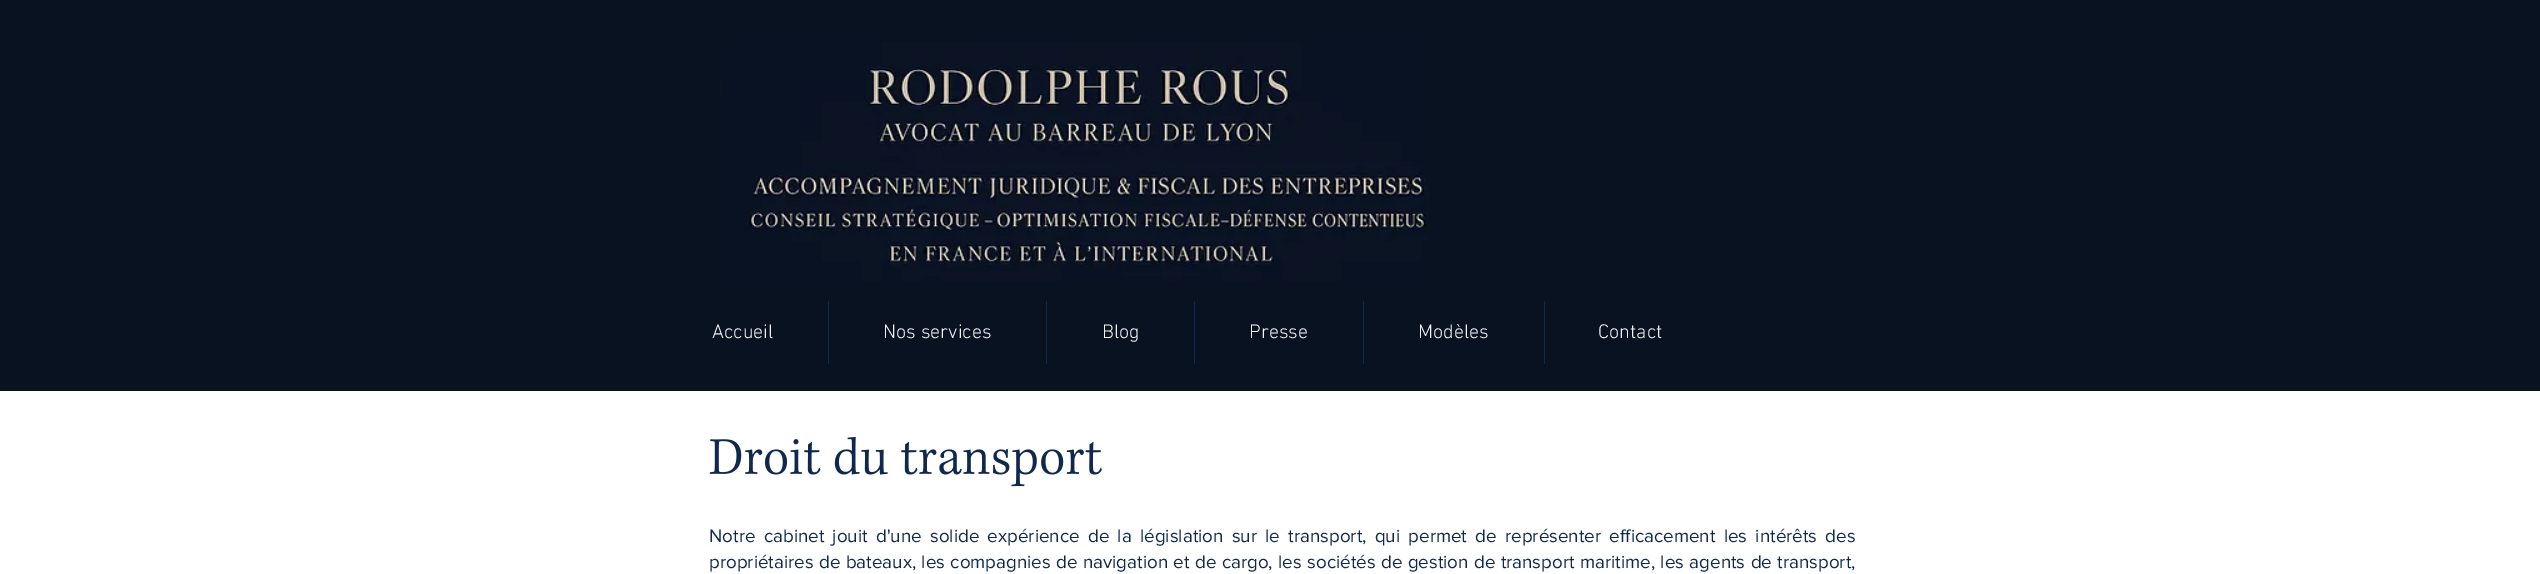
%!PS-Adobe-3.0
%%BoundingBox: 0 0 2540 574
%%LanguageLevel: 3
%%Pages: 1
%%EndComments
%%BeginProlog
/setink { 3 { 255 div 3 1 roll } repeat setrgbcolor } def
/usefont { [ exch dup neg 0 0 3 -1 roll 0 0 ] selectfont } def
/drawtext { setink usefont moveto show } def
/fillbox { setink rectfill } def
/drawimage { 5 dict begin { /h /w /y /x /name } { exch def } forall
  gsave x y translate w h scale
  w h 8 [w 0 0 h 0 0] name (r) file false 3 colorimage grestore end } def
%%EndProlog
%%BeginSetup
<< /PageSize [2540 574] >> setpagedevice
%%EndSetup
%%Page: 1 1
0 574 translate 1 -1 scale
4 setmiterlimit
0 0 2540 574 255 255 255 fillbox
0 0 2540 391 9 18 33 fillbox
(assets/img1.rgb) 721 42 708 239 drawimage
(Accueil) 712 338 /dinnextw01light-Light 20 244 244 244 drawtext
828 301 1 63 16 40 77 fillbox
(Nos services) 883 338 /dinnextw01light-Light 20 244 244 244 drawtext
1046 301 1 63 16 40 77 fillbox
(Blog) 1102 338 /dinnextw01light-Light 20 244 244 244 drawtext
1194 301 1 63 16 40 77 fillbox
(Presse) 1249 338 /dinnextw01light-Light 20 244 244 244 drawtext
1363 301 1 63 16 40 77 fillbox
(Modèles) 1418 338 /dinnextw01light-Light 20 244 244 244 drawtext
1544 301 1 63 16 40 77 fillbox
(Contact) 1598 338 /dinnextw01light-Light 20 244 244 244 drawtext
(assets/img2.rgb) 709 436 393 51 drawimage
/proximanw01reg-Regular 18.75 usefont
16 40 77 setink
709 542 moveto 3.5 0 32 (Notre cabinet jouit d'une solide expérience de la législation sur le transport, qui permet de représenter efficacement les intérêts des) widthshow
709 568 moveto 0.6 0 32 (propriétaires de bateaux, les compagnies de navigation et de cargo, les sociétés de gestion de transport maritime, les agents de transport,) widthshow
showpage
%%EOF
